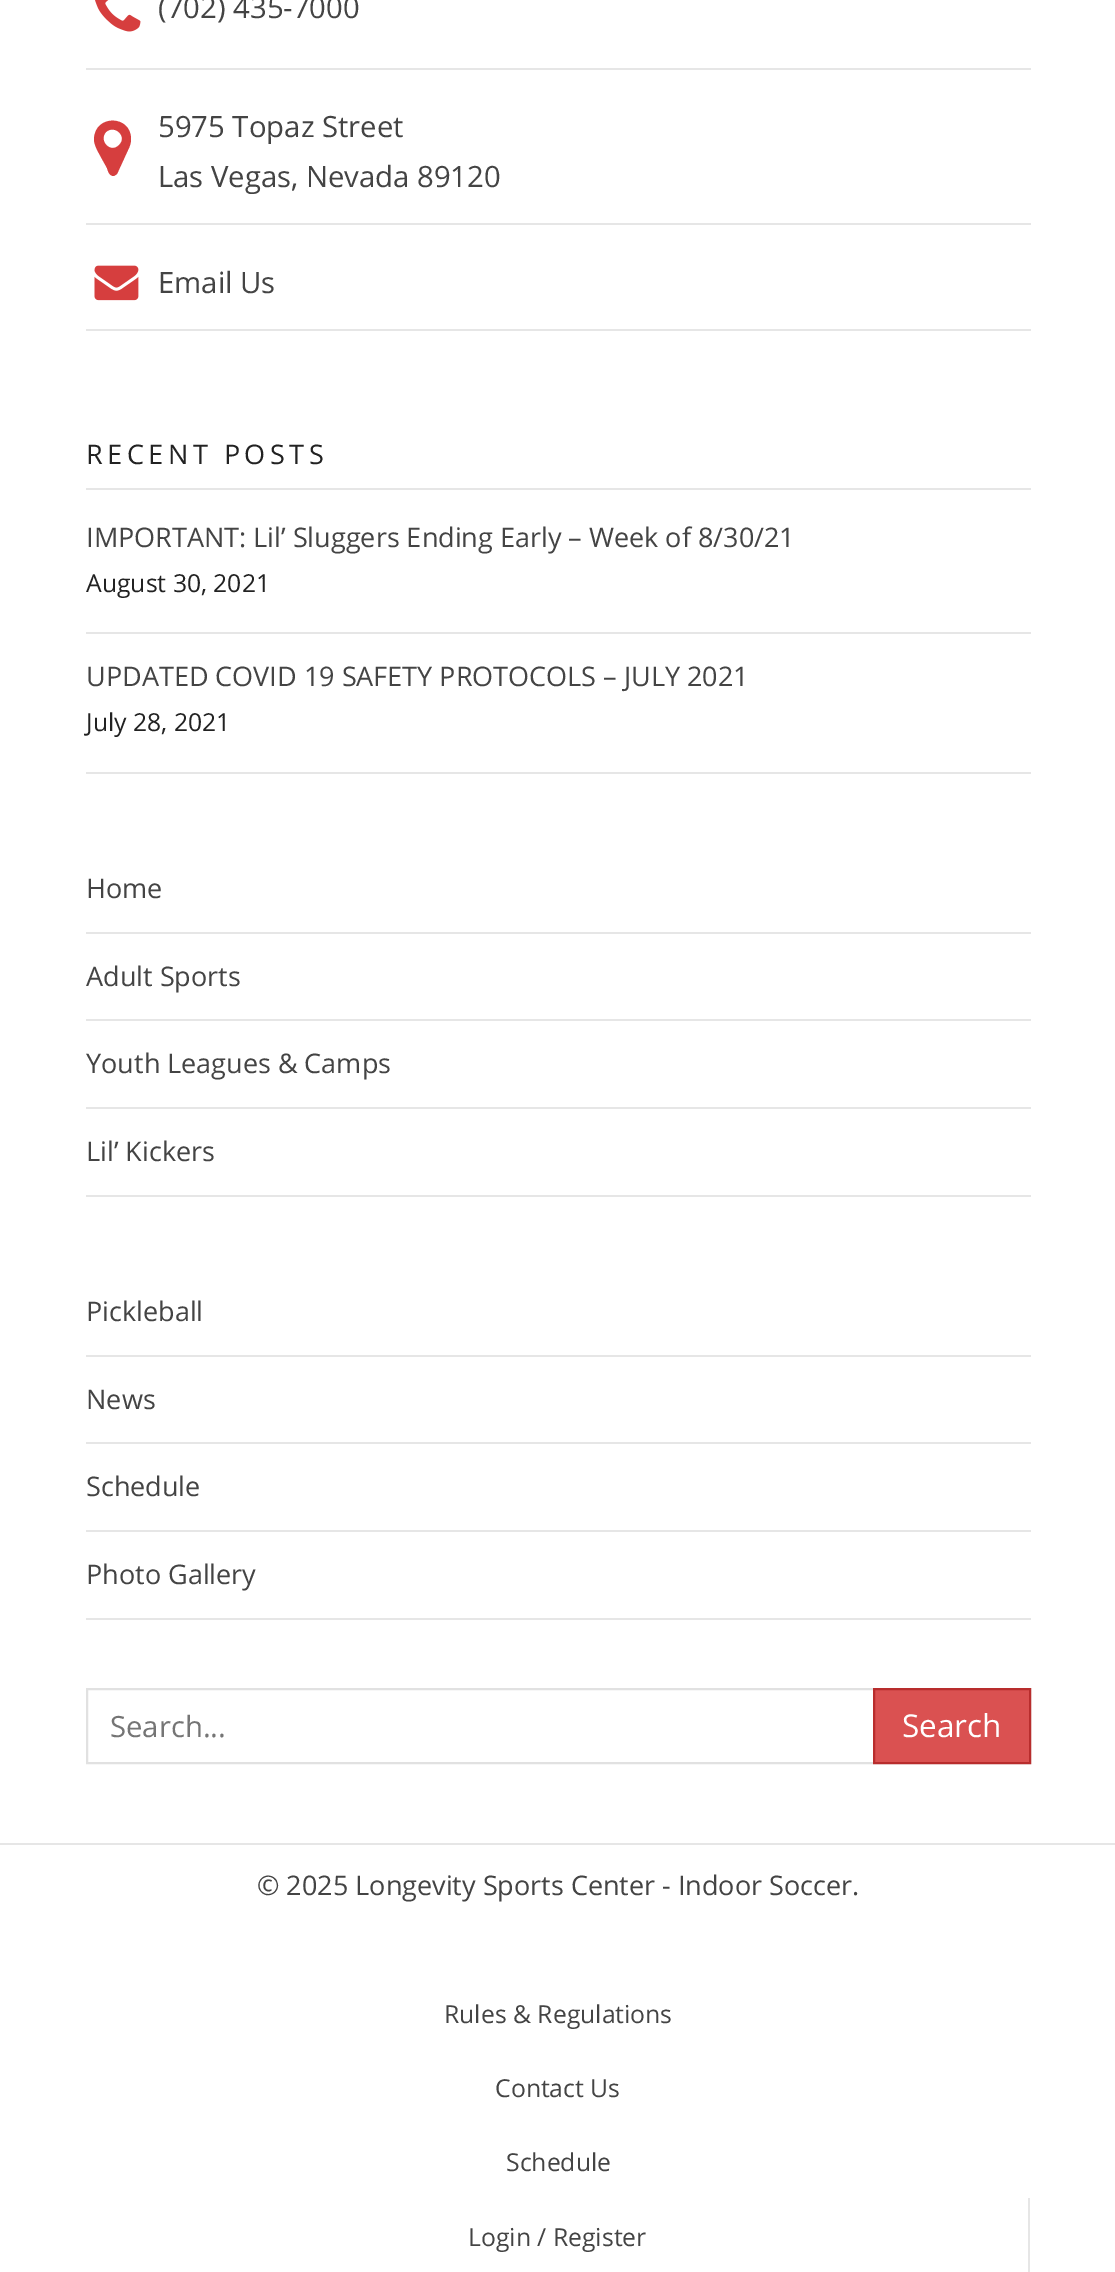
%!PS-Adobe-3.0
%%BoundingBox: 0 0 1115 2272
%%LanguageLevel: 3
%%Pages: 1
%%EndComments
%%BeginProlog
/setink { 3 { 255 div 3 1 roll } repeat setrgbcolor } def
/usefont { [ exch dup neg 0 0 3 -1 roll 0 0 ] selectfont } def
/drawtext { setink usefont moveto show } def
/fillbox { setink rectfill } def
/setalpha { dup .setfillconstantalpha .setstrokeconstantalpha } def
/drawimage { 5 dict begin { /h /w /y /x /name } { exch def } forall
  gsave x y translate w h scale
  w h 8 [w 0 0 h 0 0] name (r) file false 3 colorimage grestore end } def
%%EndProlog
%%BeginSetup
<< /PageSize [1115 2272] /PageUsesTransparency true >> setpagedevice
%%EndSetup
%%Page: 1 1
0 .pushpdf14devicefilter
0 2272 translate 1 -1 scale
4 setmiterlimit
0 0 1115 2272 255 255 255 fillbox
86 68 945 2 230 230 230 fillbox
(assets/img1.rgb) 95 0 46 32 drawimage
(\(702\) 435-7000) 158 18 /OpenSans-Regular 29.25 68 68 68 drawtext
86 223 945 2 230 230 230 fillbox
214 62 62 setink
119 145 moveto 128 137 115 124 106 132 curveto 98 141 111 154 119 145 curveto closepath 131 139 moveto 131 143 130 146 128 150 curveto 117 174 lineto 114 176 lineto 109 176 108 171 107 168 curveto 102 159 lineto 99 153 94 146 94 139 curveto 95 114 131 115 131 139 curveto closepath fill
(5975 Topaz Street) 158 137 /OpenSans-Regular 29.25 68 68 68 drawtext
(Las Vegas, Nevada 89120) 158 187 /OpenSans-Regular 29.25 68 68 68 drawtext
86 329 945 2 230 230 230 fillbox
(assets/img2.rgb) 94 265 45 36 drawimage
(Email Us) 158 293 /OpenSans-Regular 29.25 68 68 68 drawtext
86 488 945 2 230 230 230 fillbox
/OpenSans-Regular 27 usefont
34 34 34 setink
86 464 moveto 4.5 0 (RECENT POSTS) ashow
86 632 945 2 230 230 230 fillbox
(IMPORTANT: Lil’ Sluggers Ending Early – Week of 8/30/21) 86 547 /OpenSans-Regular 27 68 68 68 drawtext
(August 30, 2021) 86 592 /OpenSans-Regular 24.75 34 34 34 drawtext
86 772 945 2 230 230 230 fillbox
(UPDATED COVID 19 SAFETY PROTOCOLS – JULY 2021) 86 686 /OpenSans-Regular 27 68 68 68 drawtext
(July 28, 2021) 86 731 /OpenSans-Regular 24.75 34 34 34 drawtext
86 932 945 2 230 230 230 fillbox
(Home) 86 898 /OpenSans-Regular 27 68 68 68 drawtext
86 1019 945 2 230 230 230 fillbox
(Adult Sports) 86 986 /OpenSans-Regular 27 68 68 68 drawtext
86 1107 945 2 230 230 230 fillbox
(Youth Leagues & Camps) 86 1073 /OpenSans-Regular 27 68 68 68 drawtext
86 1195 945 2 230 230 230 fillbox
(Lil’ Kickers) 86 1161 /OpenSans-Regular 27 68 68 68 drawtext
86 1355 945 2 230 230 230 fillbox
(Pickleball) 86 1321 /OpenSans-Regular 27 68 68 68 drawtext
86 1442 945 2 230 230 230 fillbox
(News) 86 1409 /OpenSans-Regular 27 68 68 68 drawtext
86 1530 945 2 230 230 230 fillbox
(Schedule) 86 1496 /OpenSans-Regular 27 68 68 68 drawtext
86 1618 945 2 230 230 230 fillbox
(Photo Gallery) 86 1584 /OpenSans-Regular 27 68 68 68 drawtext
225 225 225 setink
2 setlinewidth
87 1689 943 74 rectstroke
(Search...) 110 1737 /OpenSans-Regular 29.25 117 117 117 drawtext
0.9 setalpha
873 1688 158 76 214 62 62 fillbox
181 41 41 setink
874 1689 156 74 rectstroke
1 setalpha
(Search) 902 1737 /OpenSans-Regular 31.5 255 255 255 drawtext
0 1843 1115 2 230 230 230 fillbox
(© 2025 Longevity Sports Center - Indoor Soccer.) 257 1895 /OpenSans-Regular 27 68 68 68 drawtext
(Rules & Regulations) 444 2023 /OpenSans-Regular 24.75 68 68 68 drawtext
(Contact Us) 495 2097 /OpenSans-Regular 24.75 68 68 68 drawtext
(Schedule) 506 2171 /OpenSans-Regular 24.75 68 68 68 drawtext
1028 2198 2 74 230 230 230 fillbox
(Login / Register) 468 2246 /OpenSans-Regular 24.75 68 68 68 drawtext
.poppdf14devicefilter showpage
%%EOF
